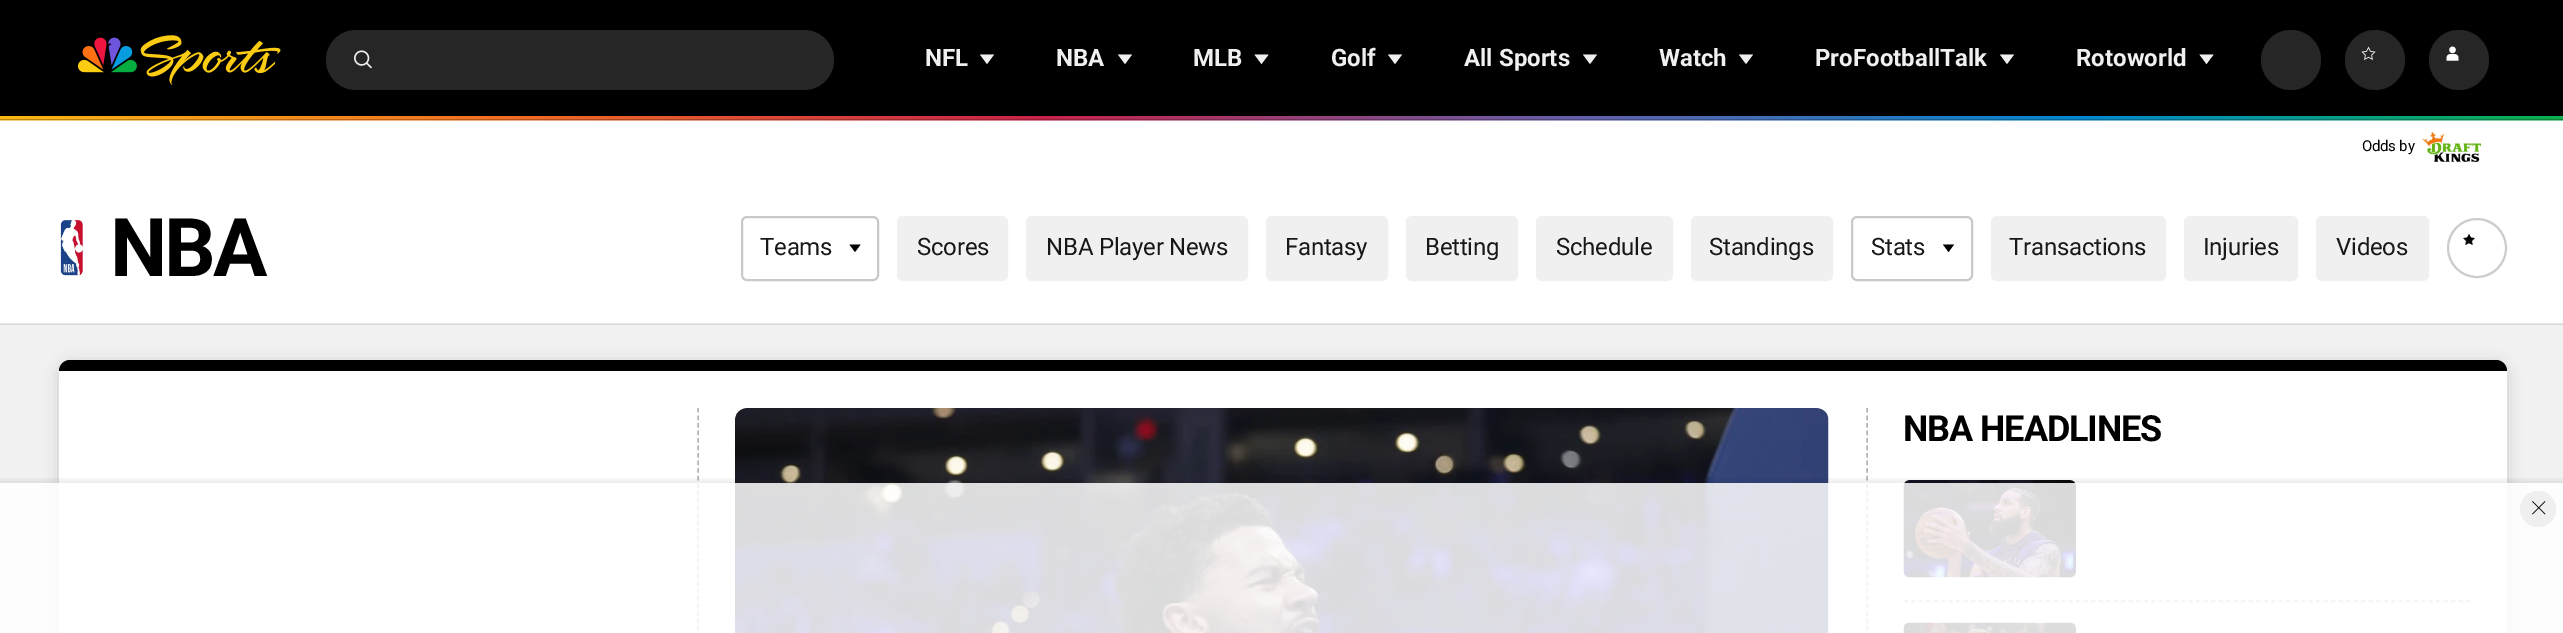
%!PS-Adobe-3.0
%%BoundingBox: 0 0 2563 633
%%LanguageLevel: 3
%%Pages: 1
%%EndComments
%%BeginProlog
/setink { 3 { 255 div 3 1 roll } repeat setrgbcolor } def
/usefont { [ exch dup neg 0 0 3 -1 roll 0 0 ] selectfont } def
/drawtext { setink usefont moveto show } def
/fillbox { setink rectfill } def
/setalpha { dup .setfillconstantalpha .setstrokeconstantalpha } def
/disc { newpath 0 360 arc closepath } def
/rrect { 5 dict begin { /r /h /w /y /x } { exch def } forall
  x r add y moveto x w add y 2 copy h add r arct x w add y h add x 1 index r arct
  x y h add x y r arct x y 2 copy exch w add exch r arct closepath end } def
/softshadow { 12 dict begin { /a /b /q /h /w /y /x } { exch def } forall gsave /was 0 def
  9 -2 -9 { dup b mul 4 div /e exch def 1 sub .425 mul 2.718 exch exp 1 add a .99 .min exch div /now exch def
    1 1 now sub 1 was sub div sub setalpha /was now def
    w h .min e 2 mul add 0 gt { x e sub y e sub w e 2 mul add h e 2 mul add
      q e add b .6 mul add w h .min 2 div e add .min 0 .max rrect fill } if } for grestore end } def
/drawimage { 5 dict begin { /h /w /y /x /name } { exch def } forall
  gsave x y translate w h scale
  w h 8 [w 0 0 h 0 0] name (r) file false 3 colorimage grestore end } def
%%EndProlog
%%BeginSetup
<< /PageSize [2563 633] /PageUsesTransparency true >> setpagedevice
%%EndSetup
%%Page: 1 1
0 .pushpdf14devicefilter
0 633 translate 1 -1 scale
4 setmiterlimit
0 0 2563 633 241 241 241 fillbox
0 324 2563 1 217 217 217 fillbox
0 0 2563 120 0 0 0 fillbox
(assets/img1.rgb) 78 35 203 50 drawimage
38 38 38 setink
326 30 508 60 30 rrect fill
(assets/img2.rgb) 354 50 18 19 drawimage
(NFL) 925 66 /Roboto-Bold 24 240 240 240 drawtext
987 64 moveto 980 54.5 lineto 994 54.5 lineto closepath fill
(NBA) 1056 66 /Roboto-Bold 24 240 240 240 drawtext
1125 64 moveto 1118 54.5 lineto 1132 54.5 lineto closepath fill
(MLB) 1193 66 /Roboto-Bold 24 240 240 240 drawtext
1261.5 64 moveto 1254.5 54.5 lineto 1268.5 54.5 lineto closepath fill
(Golf) 1331 66 /Roboto-Bold 24 240 240 240 drawtext
1395 64 moveto 1388 54.5 lineto 1402 54.5 lineto closepath fill
(All Sports) 1464 66 /Roboto-Bold 24 240 240 240 drawtext
1590 64 moveto 1583 54.5 lineto 1597 54.5 lineto closepath fill
(Watch) 1659 66 /Roboto-Bold 24 240 240 240 drawtext
1746 64 moveto 1739 54.5 lineto 1753 54.5 lineto closepath fill
(ProFootballTalk) 1815 66 /Roboto-Bold 24 240 240 240 drawtext
2007 64 moveto 2000 54.5 lineto 2014 54.5 lineto closepath fill
(Rotoworld) 2076 66 /Roboto-Bold 24 240 240 240 drawtext
2206.5 64 moveto 2199.5 54.5 lineto 2213.5 54.5 lineto closepath fill
38 38 38 setink
2291 60 30 disc fill
2375 60 30 disc fill
(assets/img3.rgb) 2361 46 15 14 drawimage
2459 60 30 disc fill
(assets/img4.rgb) 2446 46 13 15 drawimage
0 120 2563 1 230 230 230 fillbox
(assets/img5.rgb) 0 116 2563 5 drawimage
0 121 2563 202 255 255 255 fillbox
/Roboto-Regular 15 usefont
0 0 0 setink
2362 151 moveto -0.25 0 (Odds by) ashow
(assets/img6.rgb) 2422 132 59 30 drawimage
0 323 2563 1 230 230 230 fillbox
(assets/img7.rgb) 60 220 23 56 drawimage
/Roboto-Bold 81 usefont
0 0 0 setink
110 276 moveto -3 0 (NBA) ashow
201 201 201 setink
2 setlinewidth
742 217 136 63 5 rrect stroke
/Roboto-Regular 24 usefont
24 24 24 setink
760 255 moveto -0.25 0 (Teams) ashow
0 0 0 setink
855 252 moveto 849.5 244.5 lineto 860.5 244.5 lineto closepath fill
240 240 240 setink
898 217 109 63 5 rrect gsave fill grestore
stroke
24 24 24 setink
917 255 moveto -0.25 0 (Scores) ashow
240 240 240 setink
1027 217 220 63 5 rrect gsave fill grestore
stroke
24 24 24 setink
1046 255 moveto -0.25 0 (NBA Player News) ashow
240 240 240 setink
1267 217 120 63 5 rrect gsave fill grestore
stroke
24 24 24 setink
1285 255 moveto -0.25 0 (Fantasy) ashow
240 240 240 setink
1407 217 110 63 5 rrect gsave fill grestore
stroke
24 24 24 setink
1425 255 moveto -0.25 0 (Betting) ashow
240 240 240 setink
1537 217 135 63 5 rrect gsave fill grestore
stroke
24 24 24 setink
1556 255 moveto -0.25 0 (Schedule) ashow
240 240 240 setink
1692 217 140 63 5 rrect gsave fill grestore
stroke
24 24 24 setink
1709 255 moveto -0.25 0 (Standings) ashow
201 201 201 setink
1852 217 120 63 5 rrect stroke
24 24 24 setink
1871 255 moveto -0.25 0 (Stats) ashow
0 0 0 setink
1948.5 252 moveto 1943 244.5 lineto 1954 244.5 lineto closepath fill
240 240 240 setink
1992 217 173 63 5 rrect gsave fill grestore
stroke
24 24 24 setink
2009 255 moveto -0.25 0 (Transactions) ashow
240 240 240 setink
2185 217 112 63 5 rrect gsave fill grestore
stroke
24 24 24 setink
2203 255 moveto -0.25 0 (Injuries) ashow
240 240 240 setink
2317 217 111 63 5 rrect gsave fill grestore
stroke
24 24 24 setink
2336 255 moveto -0.25 0 (Videos) ashow
204 204 204 setink
2477 248 29 disc stroke
(assets/img8.rgb) 2463 233 12 12 drawimage
0 0 0 setink
59 363 2448 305 12 7.5 0.15 softshadow
255 255 255 setink
59 360 2448 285 12 rrect fill
0 0 0 setink
70 360 moveto 2496 360 lineto 2502 360 2507 365 2507 371 curveto 59 371 lineto 59 365 64 360 70 360 curveto closepath fill
179 179 179 setink
1.5 setlinewidth
[4.5 3.03] 0 setdash
1867 408 moveto 1867 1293 lineto stroke
698 408 moveto 698 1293 lineto stroke
(assets/img9.rgb) 735 408 1094 225 drawimage
/Roboto-Bold 36 usefont
0 0 0 setink
1903 441 moveto -1.1 0 (NBA HEADLINES) ashow
(assets/img10.rgb) 1903 480 173 98 drawimage
179 179 179 setink
[4.5 3] 0 setdash
1903.5 601 moveto 2470.5 601 lineto stroke
(assets/img11.rgb) 1903 622 173 11 drawimage
gsave
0 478 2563 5 rectclip
0 0 0 setink
0 480 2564 150 0 3 0.08 softshadow
grestore
0.85 setalpha
0 483 2563 150 255 255 255 fillbox
1 setalpha
239 239 239 setink
2538 509 18 disc fill
(assets/img12.rgb) 2532 501 14 14 drawimage
.poppdf14devicefilter showpage
%%EOF
